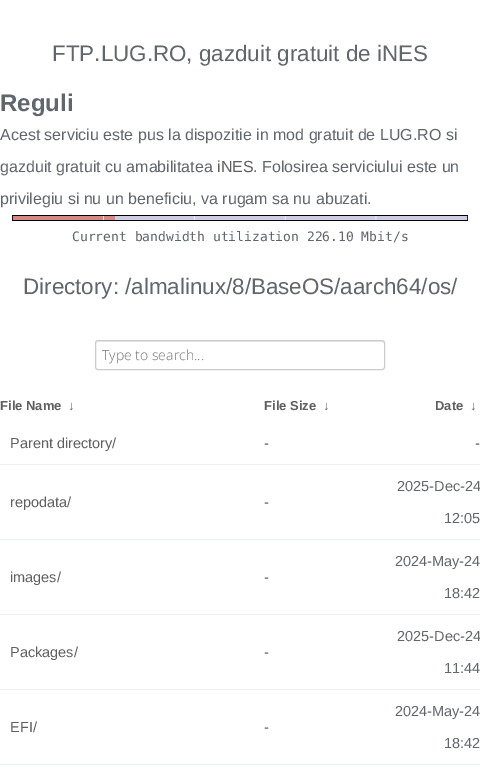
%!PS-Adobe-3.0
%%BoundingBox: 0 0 480 777
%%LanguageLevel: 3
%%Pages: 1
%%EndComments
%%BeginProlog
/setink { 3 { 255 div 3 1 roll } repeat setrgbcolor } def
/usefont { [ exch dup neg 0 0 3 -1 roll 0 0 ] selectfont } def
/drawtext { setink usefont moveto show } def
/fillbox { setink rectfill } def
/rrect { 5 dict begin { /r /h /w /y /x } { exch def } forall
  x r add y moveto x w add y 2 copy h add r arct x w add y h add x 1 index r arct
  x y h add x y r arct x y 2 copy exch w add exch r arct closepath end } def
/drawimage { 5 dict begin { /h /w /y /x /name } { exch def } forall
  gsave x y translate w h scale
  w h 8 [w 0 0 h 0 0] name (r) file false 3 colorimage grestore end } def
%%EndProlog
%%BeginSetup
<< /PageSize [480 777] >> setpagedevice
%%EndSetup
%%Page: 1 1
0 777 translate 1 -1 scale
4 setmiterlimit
0 0 480 777 255 255 255 fillbox
(FTP.LUG.RO, gazduit gratuit de iNES) 52 61 /LiberationSans-Regular 22.4 97 102 108 drawtext
(Reguli) 0 111 /LiberationSans-Bold 24 97 102 108 drawtext
(Acest serviciu este pus la dispozitie in mod gratuit de LUG.RO si) 0 140 /LiberationSans-Regular 16 97 102 108 drawtext
(gazduit gratuit cu amabilitatea) 0 172 /LiberationSans-Regular 16 97 102 108 drawtext
(iNES) 217 172 /LiberationSans-Regular 16 95 95 95 drawtext
(. Folosirea serviciului este un) 253 172 /LiberationSans-Regular 16 97 102 108 drawtext
(privilegiu si nu un beneficiu, va rugam sa nu abuzati.) 0 204 /LiberationSans-Regular 16 97 102 108 drawtext
(assets/img1.rgb) 12 215 456 6 drawimage
(Current bandwidth utilization 226.10 Mbit/s) 72 241 /DejaVuSansMono-Regular 13 97 102 108 drawtext
(Directory: /almalinux/8/BaseOS/aarch64/os/) 23 294 /LiberationSans-Regular 22.4 97 102 108 drawtext
236 236 236 setink
98 342 moveto 382 342 lineto 383 342 384 343 384 344 curveto 384 343 384 341 382 341 curveto 97 341 lineto 96 344 lineto 96 343 97 342 98 342 curveto closepath fill
204 204 204 setink
95.5 340.5 289 29 2.5 rrect stroke
(Type to search...) 102 360 /OpenSans-Light 14 117 117 117 drawtext
(File Name) 0 410 /LiberationSans-Bold 13 95 95 95 drawtext
(↓) 68 410 /LiberationSans-Bold 13 95 95 95 drawtext
(File Size) 264 410 /LiberationSans-Bold 13 95 95 95 drawtext
(↓) 323 410 /LiberationSans-Bold 13 95 95 95 drawtext
(Date) 435 410 /LiberationSans-Bold 13 95 95 95 drawtext
(↓) 470 410 /LiberationSans-Bold 13 95 95 95 drawtext
(Parent directory/) 10 448 /LiberationSans-Regular 14.5 95 95 95 drawtext
(-) 264 448 /LiberationSans-Regular 14.5 97 102 108 drawtext
0 464 480 1 237 241 245 fillbox
(-) 475 448 /LiberationSans-Regular 14.5 97 102 108 drawtext
(repodata/) 10 507 /LiberationSans-Regular 14.5 95 95 95 drawtext
(-) 264 507 /LiberationSans-Regular 14.5 97 102 108 drawtext
0 539 480 1 237 241 245 fillbox
(2025-Dec-24) 397 491 /LiberationSans-Regular 14.5 97 102 108 drawtext
(12:05) 444 523 /LiberationSans-Regular 14.5 97 102 108 drawtext
(images/) 10 582 /LiberationSans-Regular 14.5 95 95 95 drawtext
(-) 264 582 /LiberationSans-Regular 14.5 97 102 108 drawtext
0 614 480 1 237 241 245 fillbox
(2024-May-24) 395 566 /LiberationSans-Regular 14.5 97 102 108 drawtext
(18:42) 444 598 /LiberationSans-Regular 14.5 97 102 108 drawtext
(Packages/) 10 657 /LiberationSans-Regular 14.5 95 95 95 drawtext
(-) 264 657 /LiberationSans-Regular 14.5 97 102 108 drawtext
0 689 480 1 237 241 245 fillbox
(2025-Dec-24) 397 641 /LiberationSans-Regular 14.5 97 102 108 drawtext
(11:44) 444 673 /LiberationSans-Regular 14.5 97 102 108 drawtext
(EFI/) 10 732 /LiberationSans-Regular 14.5 95 95 95 drawtext
(-) 264 732 /LiberationSans-Regular 14.5 97 102 108 drawtext
0 764 480 1 237 241 245 fillbox
(2024-May-24) 395 716 /LiberationSans-Regular 14.5 97 102 108 drawtext
(18:42) 444 748 /LiberationSans-Regular 14.5 97 102 108 drawtext
showpage
%%EOF
